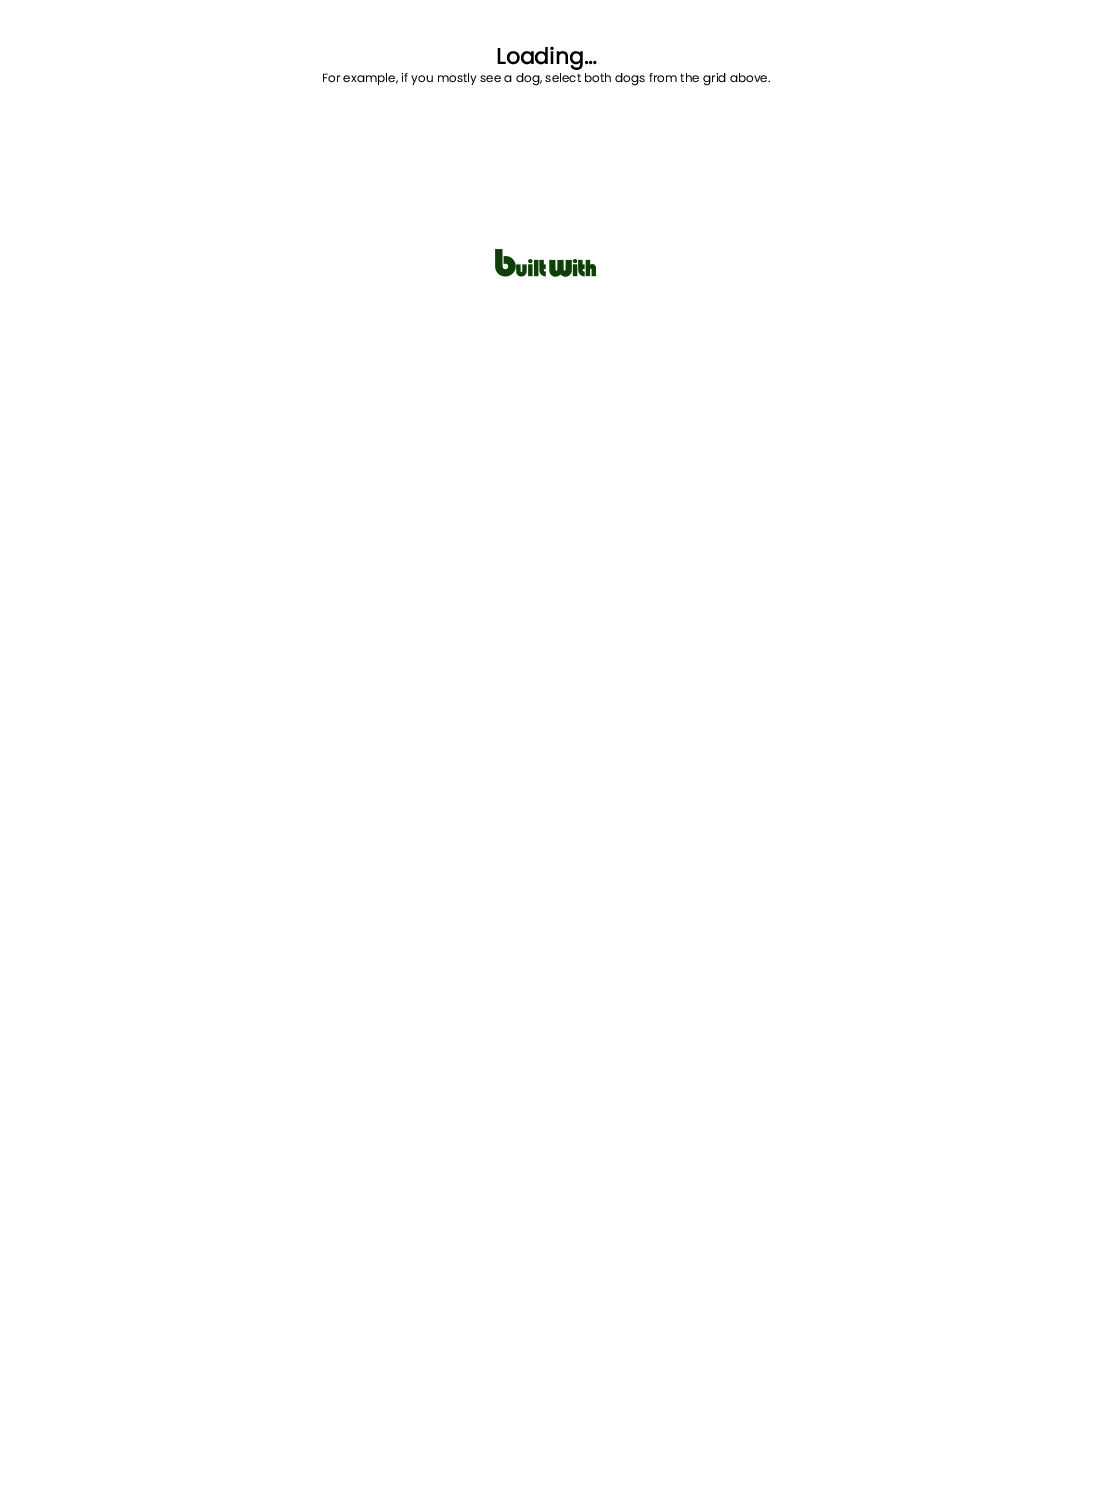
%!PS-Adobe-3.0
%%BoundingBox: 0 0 1093 1504
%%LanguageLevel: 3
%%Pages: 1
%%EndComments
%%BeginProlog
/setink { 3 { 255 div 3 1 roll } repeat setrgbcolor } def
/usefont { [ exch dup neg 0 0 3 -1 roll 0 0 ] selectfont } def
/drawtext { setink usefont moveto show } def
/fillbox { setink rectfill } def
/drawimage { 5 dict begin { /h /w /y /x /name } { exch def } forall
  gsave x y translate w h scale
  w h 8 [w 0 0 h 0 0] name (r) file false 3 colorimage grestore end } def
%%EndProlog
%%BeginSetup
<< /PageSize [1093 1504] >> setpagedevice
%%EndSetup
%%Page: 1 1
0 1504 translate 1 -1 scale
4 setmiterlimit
0 0 1093 1504 255 255 255 fillbox
(Loading…) 496 64 /Poppins-Bold 22 0 0 0 drawtext
(For example, if you mostly see a dog, select both dogs from the grid above.) 322 82 /Poppins-Regular 12 0 0 0 drawtext
(assets/img1.rgb) 495 249 102 28 drawimage
showpage
%%EOF
